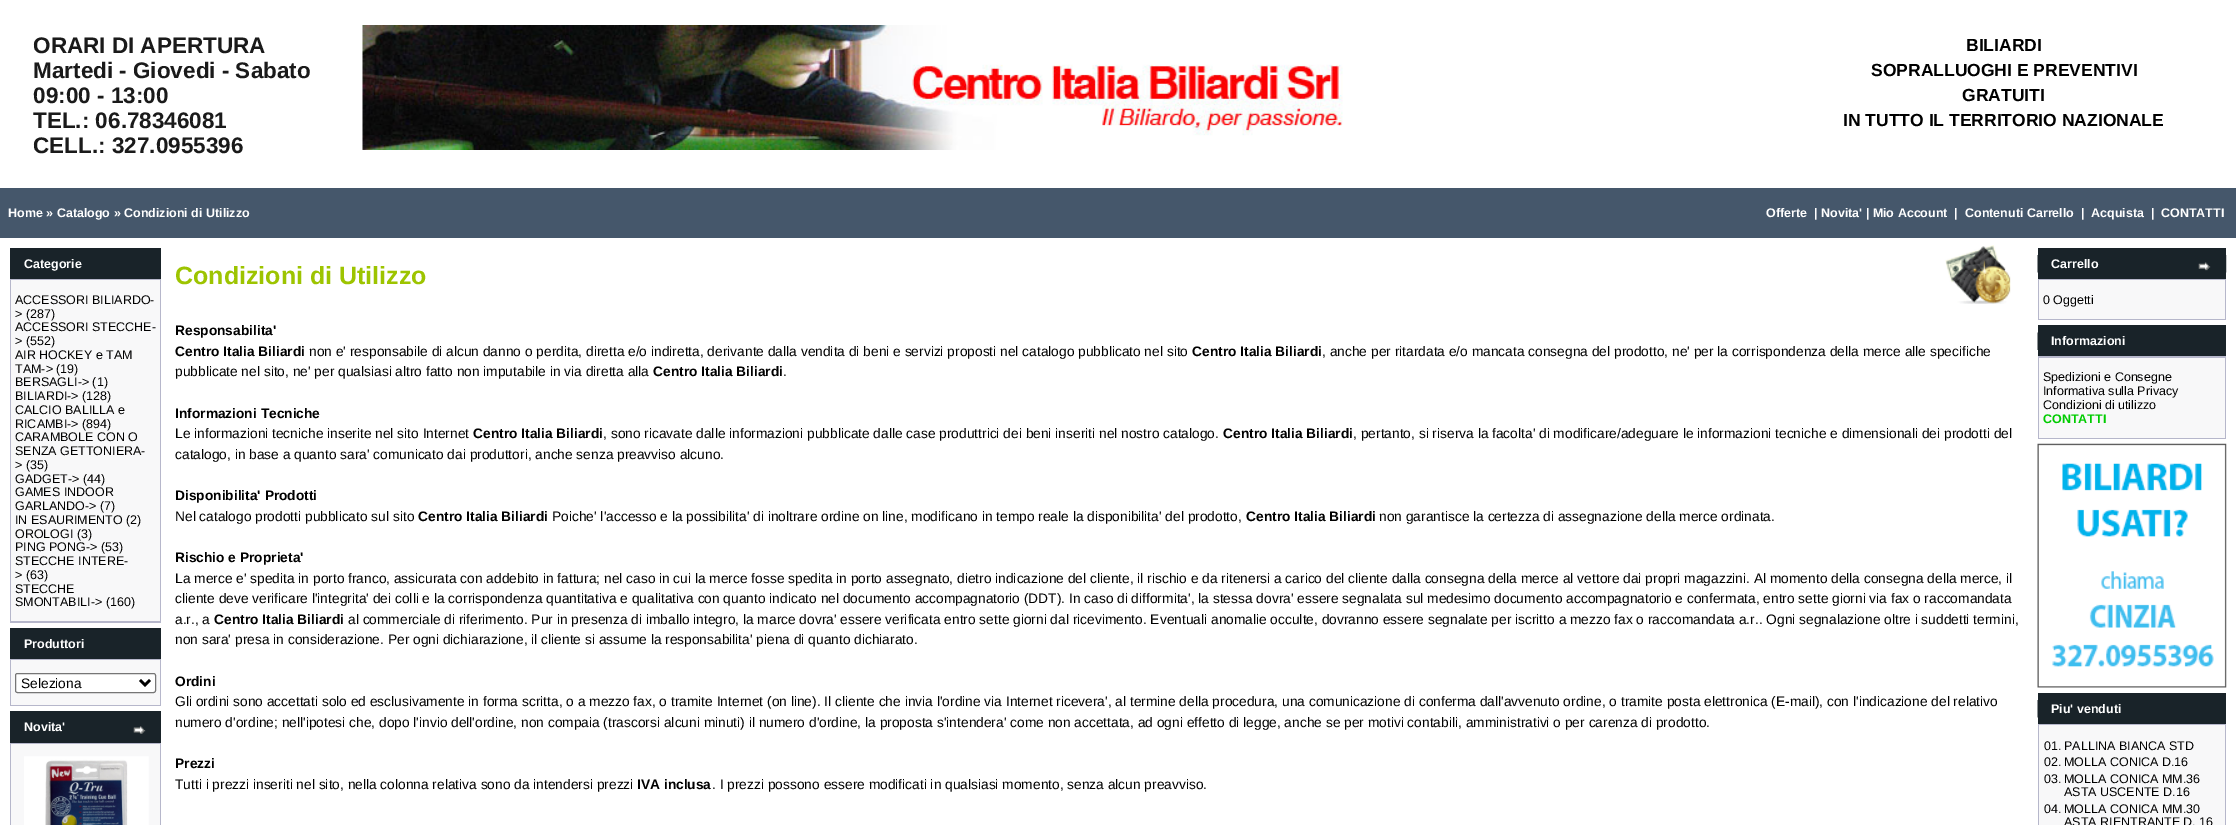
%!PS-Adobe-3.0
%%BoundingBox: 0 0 2236 825
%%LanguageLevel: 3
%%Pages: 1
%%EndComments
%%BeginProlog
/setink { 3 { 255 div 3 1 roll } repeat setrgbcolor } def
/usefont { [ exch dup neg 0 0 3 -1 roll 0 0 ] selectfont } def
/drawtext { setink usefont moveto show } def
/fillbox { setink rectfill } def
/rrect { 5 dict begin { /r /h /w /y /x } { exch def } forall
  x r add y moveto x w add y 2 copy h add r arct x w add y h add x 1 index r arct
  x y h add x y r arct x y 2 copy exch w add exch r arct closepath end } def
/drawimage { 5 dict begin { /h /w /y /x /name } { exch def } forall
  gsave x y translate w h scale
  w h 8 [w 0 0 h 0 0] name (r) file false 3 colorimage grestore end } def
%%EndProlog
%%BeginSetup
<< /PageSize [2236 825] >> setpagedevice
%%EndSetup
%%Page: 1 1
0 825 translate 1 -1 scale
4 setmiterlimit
0 0 2236 825 255 255 255 fillbox
(ORARI DI APERTURA) 33 53 /LiberationSans-Bold 22.5 26 26 26 drawtext
(Martedi - Giovedi - Sabato) 33 78 /LiberationSans-Bold 22.5 26 26 26 drawtext
(09:00 - 13:00) 33 103 /LiberationSans-Bold 22.5 26 26 26 drawtext
(TEL.: 06.78346081) 33 128 /LiberationSans-Bold 22.5 26 26 26 drawtext
(CELL.: 327.0955396) 33 153 /LiberationSans-Bold 22.5 26 26 26 drawtext
(assets/img1.rgb) 362 25 981 125 drawimage
(BILIARDI) 1966 51 /LiberationSans-Bold 17.5 0 0 0 drawtext
(SOPRALLUOGHI E PREVENTIVI) 1871 76 /LiberationSans-Bold 17.5 0 0 0 drawtext
(GRATUITI) 1962 101 /LiberationSans-Bold 17.5 0 0 0 drawtext
(IN TUTTO IL TERRITORIO NAZIONALE) 1843 126 /LiberationSans-Bold 17.5 0 0 0 drawtext
0 188 2236 50 69 87 107 fillbox
(Home » Catalogo » Condizioni di Utilizzo) 8 217 /LiberationSans-Bold 12.5 255 255 255 drawtext
(Offerte) 1766 217 /LiberationSans-Bold 12.5 255 255 255 drawtext
(| Novita' | Mio Account) 1814 217 /LiberationSans-Bold 12.5 255 255 255 drawtext
(|) 1954 217 /LiberationSans-Bold 12.5 255 255 255 drawtext
(Contenuti Carrello) 1965 217 /LiberationSans-Bold 12.5 255 255 255 drawtext
(|) 2081 217 /LiberationSans-Bold 12.5 255 255 255 drawtext
(Acquista) 2091 217 /LiberationSans-Bold 12.5 255 255 255 drawtext
(|) 2151 217 /LiberationSans-Bold 12.5 255 255 255 drawtext
(CONTATTI) 2161 217 /LiberationSans-Bold 12.5 255 255 255 drawtext
10 248 151 31 25 35 41 fillbox
(Categorie) 24 268 /LiberationSans-Bold 12.5 255 255 255 drawtext
10 279 151 344 182 183 203 fillbox
11 280 149 341 248 248 249 fillbox
(ACCESSORI BILIARDO-) 15 304 /LiberationSans-Regular 12.5 0 0 0 drawtext
(> \(287\)) 15 318 /LiberationSans-Regular 12.5 0 0 0 drawtext
(ACCESSORI STECCHE-) 15 331 /LiberationSans-Regular 12.5 0 0 0 drawtext
(> \(552\)) 15 345 /LiberationSans-Regular 12.5 0 0 0 drawtext
(AIR HOCKEY e TAM) 15 359 /LiberationSans-Regular 12.5 0 0 0 drawtext
(TAM-> \(19\)) 15 373 /LiberationSans-Regular 12.5 0 0 0 drawtext
(BERSAGLI-> \(1\)) 15 386 /LiberationSans-Regular 12.5 0 0 0 drawtext
(BILIARDI-> \(128\)) 15 400 /LiberationSans-Regular 12.5 0 0 0 drawtext
(CALCIO BALILLA e) 15 414 /LiberationSans-Regular 12.5 0 0 0 drawtext
(RICAMBI-> \(894\)) 15 428 /LiberationSans-Regular 12.5 0 0 0 drawtext
(CARAMBOLE CON O) 15 441 /LiberationSans-Regular 12.5 0 0 0 drawtext
(SENZA GETTONIERA-) 15 455 /LiberationSans-Regular 12.5 0 0 0 drawtext
(> \(35\)) 15 469 /LiberationSans-Regular 12.5 0 0 0 drawtext
(GADGET-> \(44\)) 15 483 /LiberationSans-Regular 12.5 0 0 0 drawtext
(GAMES INDOOR) 15 496 /LiberationSans-Regular 12.5 0 0 0 drawtext
(GARLANDO-> \(7\)) 15 510 /LiberationSans-Regular 12.5 0 0 0 drawtext
(IN ESAURIMENTO \(2\)) 15 524 /LiberationSans-Regular 12.5 0 0 0 drawtext
(OROLOGI \(3\)) 15 538 /LiberationSans-Regular 12.5 0 0 0 drawtext
(PING PONG-> \(53\)) 15 551 /LiberationSans-Regular 12.5 0 0 0 drawtext
(STECCHE INTERE-) 15 565 /LiberationSans-Regular 12.5 0 0 0 drawtext
(> \(63\)) 15 579 /LiberationSans-Regular 12.5 0 0 0 drawtext
(STECCHE) 15 593 /LiberationSans-Regular 12.5 0 0 0 drawtext
(SMONTABILI-> \(160\)) 15 606 /LiberationSans-Regular 12.5 0 0 0 drawtext
10 628 151 31 25 35 41 fillbox
(Produttori) 24 648 /LiberationSans-Bold 12.5 255 255 255 drawtext
10 659 151 47 182 183 203 fillbox
11 660 149 45 248 248 249 fillbox
255 255 255 setink
15.5 673.5 140 19 2 rrect gsave fill grestore
118 118 118 setink
stroke
0 0 0 setink
2.5 setlinewidth
140 680 moveto 145 685 lineto 150 680 lineto stroke
(Seleziona) 21 688 /LiberationSans-Regular 13.75 0 0 0 drawtext
10 711 151 32 25 35 41 fillbox
(Novita') 24 731 /LiberationSans-Bold 12.5 255 255 255 drawtext
(assets/img2.rgb) 133 726 13 8 drawimage
10 743 151 82 182 183 203 fillbox
11 744 149 81 248 248 249 fillbox
(assets/img3.rgb) 24 756 125 69 drawimage
(Condizioni di Utilizzo) 175 284 /LiberationSans-Bold 25 157 196 0 drawtext
(assets/img4.rgb) 1945 245 66 59 drawimage
(Responsabilita') 175 335 /LiberationSans-Bold 13.75 0 0 0 drawtext
(Centro Italia Biliardi) 175 356 /LiberationSans-Bold 13.75 0 0 0 drawtext
(non e' responsabile di alcun danno o perdita, diretta e/o indiretta, derivante dalla vendita di beni e servizi proposti nel catalogo pubblicato nel sito) 309 356 /LiberationSans-Regular 13.75 0 0 0 drawtext
(Centro Italia Biliardi) 1192 356 /LiberationSans-Bold 13.75 0 0 0 drawtext
(, anche per ritardata e/o mancata consegna del prodotto, ne' per la corrispondenza della merce alle specifiche) 1322 356 /LiberationSans-Regular 13.75 0 0 0 drawtext
(pubblicate nel sito, ne' per qualsiasi altro fatto non imputabile in via diretta alla) 175 376 /LiberationSans-Regular 13.75 0 0 0 drawtext
(Centro Italia Biliardi) 653 376 /LiberationSans-Bold 13.75 0 0 0 drawtext
(.) 783 376 /LiberationSans-Regular 13.75 0 0 0 drawtext
(Informazioni Tecniche) 175 418 /LiberationSans-Bold 13.75 0 0 0 drawtext
(Le informazioni tecniche inserite nel sito Internet) 175 438 /LiberationSans-Regular 13.75 0 0 0 drawtext
(Centro Italia Biliardi) 473 438 /LiberationSans-Bold 13.75 0 0 0 drawtext
(, sono ricavate dalle informazioni pubblicate dalle case produttrici dei beni inseriti nel nostro catalogo.) 603 438 /LiberationSans-Regular 13.75 0 0 0 drawtext
(Centro Italia Biliardi) 1223 438 /LiberationSans-Bold 13.75 0 0 0 drawtext
(, pertanto, si riserva la facolta' di modificare/adeguare le informazioni tecniche e dimensionali dei prodotti del) 1353 438 /LiberationSans-Regular 13.75 0 0 0 drawtext
(catalogo, in base a quanto sara' comunicato dai produttori, anche senza preavviso alcuno.) 175 459 /LiberationSans-Regular 13.75 0 0 0 drawtext
(Disponibilita' Prodotti) 175 500 /LiberationSans-Bold 13.75 0 0 0 drawtext
(Nel catalogo prodotti pubblicato sul sito) 175 521 /LiberationSans-Regular 13.75 0 0 0 drawtext
(Centro Italia Biliardi) 418 521 /LiberationSans-Bold 13.75 0 0 0 drawtext
(Poiche' l'accesso e la possibilita' di inoltrare ordine on line, modificano in tempo reale la disponibilita' del prodotto,) 552 521 /LiberationSans-Regular 13.75 0 0 0 drawtext
(Centro Italia Biliardi) 1246 521 /LiberationSans-Bold 13.75 0 0 0 drawtext
(non garantisce la certezza di assegnazione della merce ordinata.) 1379 521 /LiberationSans-Regular 13.75 0 0 0 drawtext
(Rischio e Proprieta') 175 562 /LiberationSans-Bold 13.75 0 0 0 drawtext
(La merce e' spedita in porto franco, assicurata con addebito in fattura; nel caso in cui la merce fosse spedita in porto assegnato, dietro indicazione del cliente, il rischio e da ritenersi a carico del cliente dalla consegna della merce al vettore dai propri magazzini. Al momento della consegna della merce, il) 175 583 /LiberationSans-Regular 13.75 0 0 0 drawtext
(cliente deve verificare l'integrita' dei colli e la corrispondenza quantitativa e qualitativa con quanto indicato nel documento accompagnatorio \(DDT\). In caso di difformita', la stessa dovra' essere segnalata sul medesimo documento accompagnatorio e confermata, entro sette giorni via fax o raccomandata) 175 603 /LiberationSans-Regular 13.75 0 0 0 drawtext
(a.r., a) 175 624 /LiberationSans-Regular 13.75 0 0 0 drawtext
(Centro Italia Biliardi) 214 624 /LiberationSans-Bold 13.75 0 0 0 drawtext
(al commerciale di riferimento. Pur in presenza di imballo integro, la marce dovra' essere verificata entro sette giorni dal ricevimento. Eventuali anomalie occulte, dovranno essere segnalate per iscritto a mezzo fax o raccomandata a.r.. Ogni segnalazione oltre i suddetti termini,) 348 624 /LiberationSans-Regular 13.75 0 0 0 drawtext
(non sara' presa in considerazione. Per ogni dichiarazione, il cliente si assume la responsabilita' piena di quanto dichiarato.) 175 644 /LiberationSans-Regular 13.75 0 0 0 drawtext
(Ordini) 175 686 /LiberationSans-Bold 13.75 0 0 0 drawtext
(Gli ordini sono accettati solo ed esclusivamente in forma scritta, o a mezzo fax, o tramite Internet \(on line\). Il cliente che invia l'ordine via Internet ricevera', al termine della procedura, una comunicazione di conferma dall'avvenuto ordine, o tramite posta elettronica \(E-mail\), con l'indicazione del relativo) 175 706 /LiberationSans-Regular 13.75 0 0 0 drawtext
(numero d'ordine; nell'ipotesi che, dopo l'invio dell'ordine, non compaia \(trascorsi alcuni minuti\) il numero d'ordine, la proposta s'intendera' come non accettata, ad ogni effetto di legge, anche se per motivi contabili, amministrativi o per carenza di prodotto.) 175 727 /LiberationSans-Regular 13.75 0 0 0 drawtext
(Prezzi) 175 768 /LiberationSans-Bold 13.75 0 0 0 drawtext
(Tutti i prezzi inseriti nel sito, nella colonna relativa sono da intendersi prezzi) 175 789 /LiberationSans-Regular 13.75 0 0 0 drawtext
(IVA inclusa) 637 789 /LiberationSans-Bold 13.75 0 0 0 drawtext
(. I prezzi possono essere modificati in qualsiasi momento, senza alcun preavviso.) 712 789 /LiberationSans-Regular 13.75 0 0 0 drawtext
2038 248 188 31 25 35 41 fillbox
(assets/img5.rgb) 2037 255 1 18 drawimage
(Carrello) 2051 268 /LiberationSans-Bold 12.5 255 255 255 drawtext
(assets/img6.rgb) 2198 262 13 9 drawimage
(assets/img7.rgb) 2226 255 1 18 drawimage
2038 279 188 41 182 183 203 fillbox
2039 280 186 39 248 248 249 fillbox
(0 Oggetti) 2043 304 /LiberationSans-Regular 12.5 0 0 0 drawtext
2038 325 188 31 25 35 41 fillbox
(assets/img8.rgb) 2037 332 1 18 drawimage
(Informazioni) 2051 345 /LiberationSans-Bold 12.5 255 255 255 drawtext
2038 356 188 83 182 183 203 fillbox
2039 358 186 80 248 248 249 fillbox
(Spedizioni e Consegne) 2043 381 /LiberationSans-Regular 12.5 0 0 0 drawtext
(Informativa sulla Privacy) 2043 395 /LiberationSans-Regular 12.5 0 0 0 drawtext
(Condizioni di utilizzo) 2043 409 /LiberationSans-Regular 12.5 0 0 0 drawtext
(CONTATTI) 2043 423 /LiberationSans-Bold 12.5 0 204 0 drawtext
(assets/img9.rgb) 2037 443 190 245 drawimage
2038 693 188 31 25 35 41 fillbox
(assets/img5.rgb) 2037 700 1 18 drawimage
(Piu' venduti) 2051 713 /LiberationSans-Bold 12.5 255 255 255 drawtext
2038 724 188 101 182 183 203 fillbox
2039 725 186 100 248 248 249 fillbox
(01.) 2044 750 /LiberationSans-Regular 12.5 0 0 0 drawtext
(PALLINA BIANCA STD) 2064 750 /LiberationSans-Regular 12.5 0 0 0 drawtext
(02.) 2044 766 /LiberationSans-Regular 12.5 0 0 0 drawtext
(MOLLA CONICA D.16) 2064 766 /LiberationSans-Regular 12.5 0 0 0 drawtext
(03.) 2044 783 /LiberationSans-Regular 12.5 0 0 0 drawtext
(MOLLA CONICA MM.36) 2064 783 /LiberationSans-Regular 12.5 0 0 0 drawtext
(ASTA USCENTE D.16) 2064 796 /LiberationSans-Regular 12.5 0 0 0 drawtext
(04.) 2044 813 /LiberationSans-Regular 12.5 0 0 0 drawtext
(MOLLA CONICA MM.30) 2064 813 /LiberationSans-Regular 12.5 0 0 0 drawtext
(ASTA RIENTRANTE D. 16) 2064 826 /LiberationSans-Regular 12.5 0 0 0 drawtext
showpage
%%EOF
